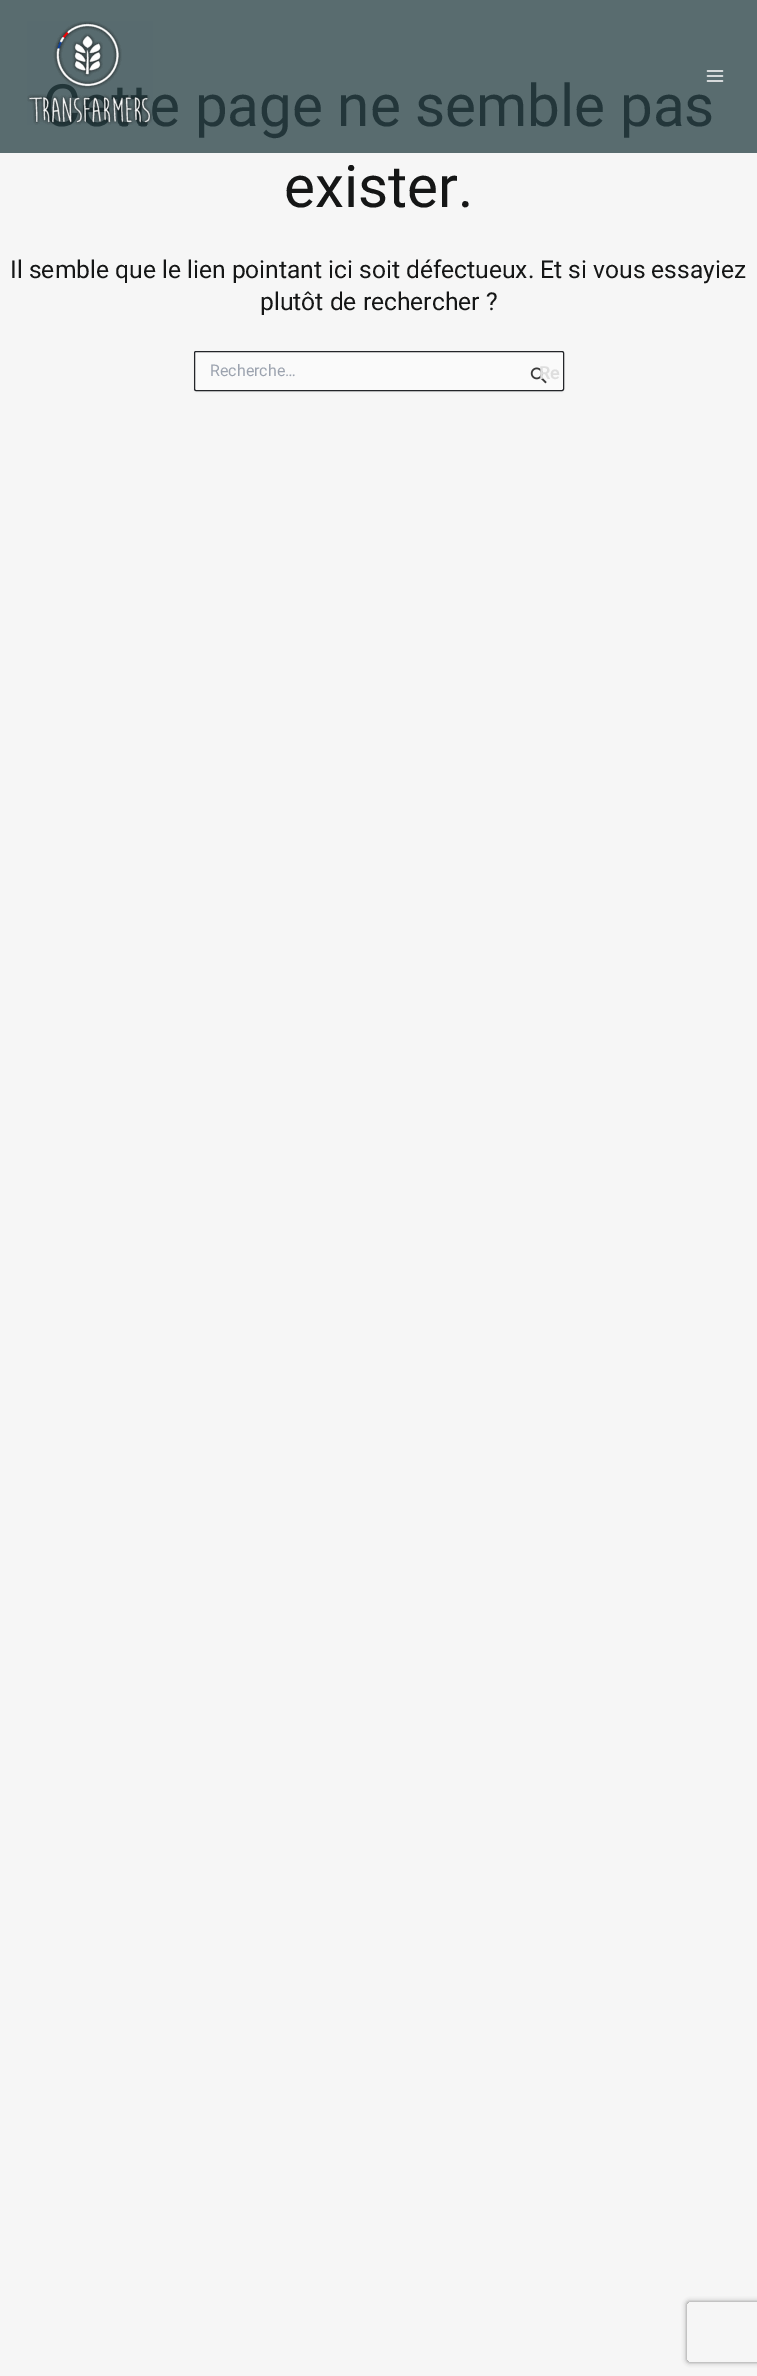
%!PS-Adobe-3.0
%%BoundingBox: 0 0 757 2376
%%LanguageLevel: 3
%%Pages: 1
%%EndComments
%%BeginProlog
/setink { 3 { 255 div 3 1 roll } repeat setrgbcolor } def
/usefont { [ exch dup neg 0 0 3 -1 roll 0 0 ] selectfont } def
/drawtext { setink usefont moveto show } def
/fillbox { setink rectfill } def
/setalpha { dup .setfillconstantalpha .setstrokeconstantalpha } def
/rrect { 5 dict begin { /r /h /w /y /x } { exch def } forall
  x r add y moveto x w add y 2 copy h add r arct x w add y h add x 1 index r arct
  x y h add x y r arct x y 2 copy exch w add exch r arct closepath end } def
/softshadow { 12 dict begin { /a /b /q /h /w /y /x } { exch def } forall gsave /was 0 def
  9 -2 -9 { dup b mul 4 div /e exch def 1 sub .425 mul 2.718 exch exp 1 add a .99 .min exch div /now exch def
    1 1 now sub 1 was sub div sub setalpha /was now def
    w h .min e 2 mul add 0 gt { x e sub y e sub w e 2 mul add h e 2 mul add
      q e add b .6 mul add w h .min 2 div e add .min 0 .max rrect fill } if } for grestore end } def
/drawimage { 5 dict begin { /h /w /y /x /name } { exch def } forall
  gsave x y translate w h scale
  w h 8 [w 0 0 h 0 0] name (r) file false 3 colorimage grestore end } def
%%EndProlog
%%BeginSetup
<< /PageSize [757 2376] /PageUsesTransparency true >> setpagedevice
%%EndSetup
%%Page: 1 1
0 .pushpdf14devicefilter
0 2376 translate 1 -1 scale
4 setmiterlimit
0 0 757 2376 246 246 246 fillbox
0 0 757 153 89 108 111 fillbox
(Cette page ne semble pas) 42 126 /Roboto-Regular 58.4 35 54 58 drawtext
(assets/img1.rgb) 27 21 126 104 drawimage
(assets/img2.rgb) 706 70 18 12 drawimage
(exister.) 284 207 /Roboto-Regular 58.4 21 22 22 drawtext
(Il semble que le lien pointant ici soit défectueux. Et si vous essayiez) 10 278 /Roboto-Regular 24.6 21 22 22 drawtext
(plutôt de rechercher ?) 260 310 /Roboto-Regular 24.6 21 22 22 drawtext
0 0 0 setink
194 352 370 40 2 1 0.05 softshadow
250 250 250 setink
194.5 351.5 369 39 1.5 rrect gsave fill grestore
35 37 41 setink
stroke
(Recherche…) 210 376 /Roboto-Regular 16 156 163 175 drawtext
(assets/img3.rgb) 530 367 17 17 drawimage
(Re) 539 379 /Roboto-SemiBold 18 222 222 222 drawtext
gsave
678 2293 moveto 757 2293 lineto 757 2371 lineto 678 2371 lineto closepath 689 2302 moveto 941 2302 lineto 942 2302 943 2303 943 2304 curveto 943 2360 lineto 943 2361 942 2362 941 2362 curveto 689 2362 lineto 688 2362 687 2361 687 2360 curveto 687 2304 lineto 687 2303 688 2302 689 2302 curveto closepath eoclip newpath
128 128 128 setink
687 2302 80 60 2 2.5 1 softshadow
grestore
.poppdf14devicefilter showpage
%%EOF
